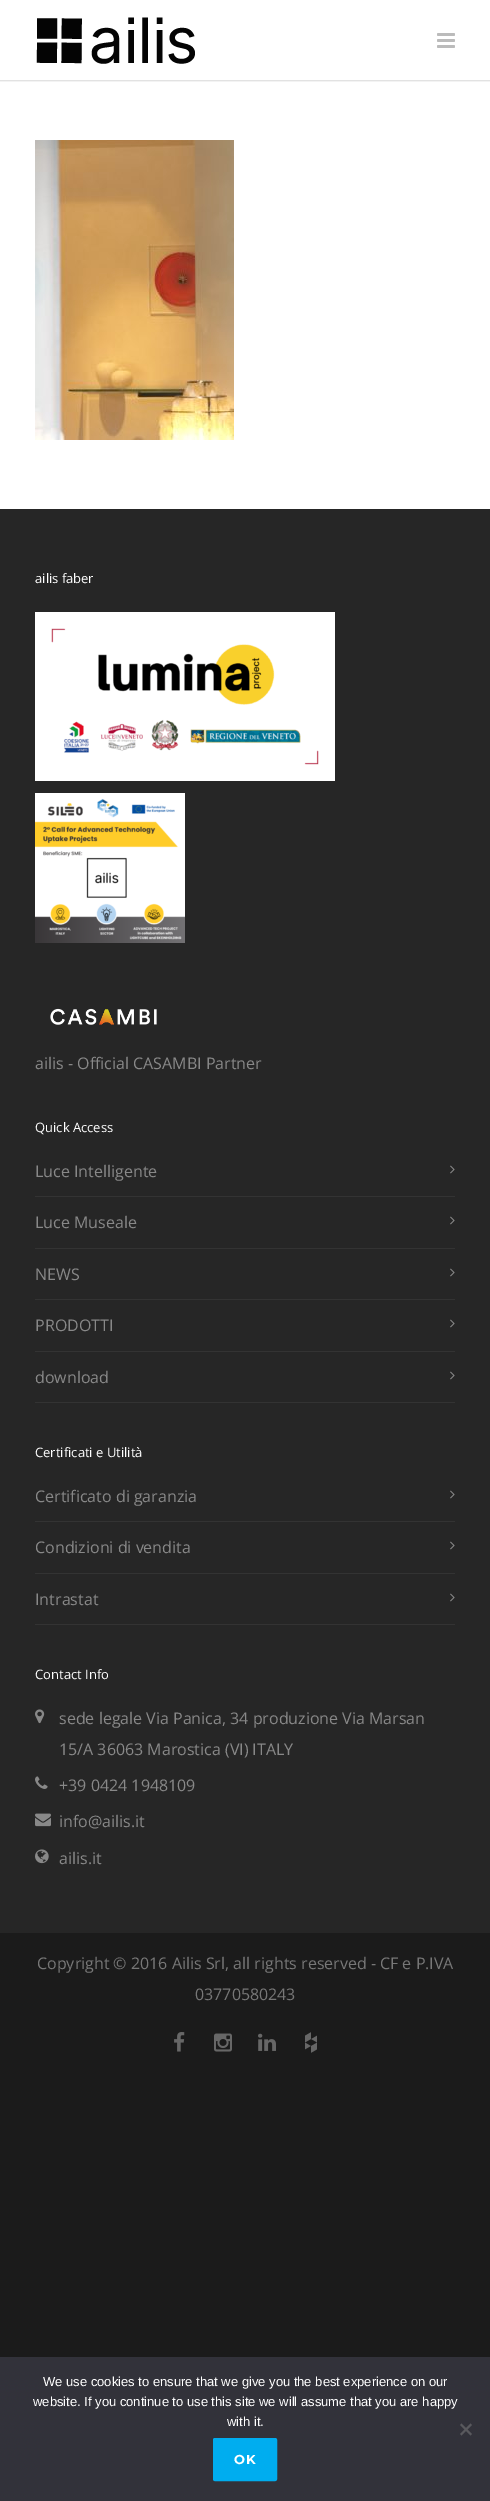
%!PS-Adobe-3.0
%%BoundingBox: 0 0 490 2501
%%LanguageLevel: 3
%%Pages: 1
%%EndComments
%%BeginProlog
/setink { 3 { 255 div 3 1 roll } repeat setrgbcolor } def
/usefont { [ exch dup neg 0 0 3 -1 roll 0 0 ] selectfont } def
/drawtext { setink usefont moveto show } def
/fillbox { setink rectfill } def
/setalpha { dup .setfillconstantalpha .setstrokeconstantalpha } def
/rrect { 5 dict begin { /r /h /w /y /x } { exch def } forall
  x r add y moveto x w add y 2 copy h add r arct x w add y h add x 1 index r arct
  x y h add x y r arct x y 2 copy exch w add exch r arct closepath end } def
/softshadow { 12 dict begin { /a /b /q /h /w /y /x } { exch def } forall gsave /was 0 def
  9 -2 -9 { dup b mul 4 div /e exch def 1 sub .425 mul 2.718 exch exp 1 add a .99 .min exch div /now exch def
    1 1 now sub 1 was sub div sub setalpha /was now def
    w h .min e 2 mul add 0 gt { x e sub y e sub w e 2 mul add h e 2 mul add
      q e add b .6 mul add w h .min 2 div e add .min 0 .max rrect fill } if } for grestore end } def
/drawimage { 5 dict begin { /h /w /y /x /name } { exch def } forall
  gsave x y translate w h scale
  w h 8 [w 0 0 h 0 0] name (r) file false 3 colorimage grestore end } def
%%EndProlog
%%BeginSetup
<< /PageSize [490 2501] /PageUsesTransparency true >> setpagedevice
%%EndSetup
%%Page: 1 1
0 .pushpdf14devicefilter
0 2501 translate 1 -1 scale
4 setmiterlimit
0 0 490 2501 27 27 27 fillbox
0 0 490 509 255 255 255 fillbox
gsave
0 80 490 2 rectclip
0 0 0 setink
-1 -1 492 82 0 1 0.16 softshadow
grestore
(assets/img1.rgb) 36 17 159 47 drawimage
(assets/img2.rgb) 437 33 18 15 drawimage
(assets/img3.rgb) 35 140 199 300 drawimage
0 509 490 1424 38 38 38 fillbox
(ailis faber) 35 583 /OpenSans-Regular 13 255 255 255 drawtext
(assets/img4.rgb) 35 612 300 169 drawimage
(assets/img5.rgb) 35 793 150 150 drawimage
(assets/img6.rgb) 50 1008 107 17 drawimage
(ailis - Official CASAMBI Partner) 35 1069 /OpenSans-Regular 16 136 136 136 drawtext
(Quick Access) 35 1132 /OpenSans-Regular 13 255 255 255 drawtext
35 1196 420 1 51 51 51 fillbox
(Luce Intelligente) 35 1177 /OpenSans-Regular 16 136 136 136 drawtext
(assets/img7.rgb) 450 1165 5 9 drawimage
35 1248 420 1 51 51 51 fillbox
(Luce Museale) 35 1228 /OpenSans-Regular 16 136 136 136 drawtext
(assets/img7.rgb) 450 1216 5 9 drawimage
35 1299 420 1 51 51 51 fillbox
(NEWS) 35 1280 /OpenSans-Regular 16 136 136 136 drawtext
(assets/img7.rgb) 450 1268 5 9 drawimage
35 1351 420 1 51 51 51 fillbox
(PRODOTTI) 35 1331 /OpenSans-Regular 16 136 136 136 drawtext
(assets/img7.rgb) 450 1319 5 9 drawimage
35 1402 420 1 51 51 51 fillbox
(download) 35 1383 /OpenSans-Regular 16 136 136 136 drawtext
(assets/img7.rgb) 450 1371 5 9 drawimage
(Certificati e Utilità) 35 1457 /OpenSans-Regular 13 255 255 255 drawtext
35 1521 420 1 51 51 51 fillbox
(Certificato di garanzia) 35 1502 /OpenSans-Regular 16 136 136 136 drawtext
(assets/img7.rgb) 450 1490 5 9 drawimage
35 1573 420 1 51 51 51 fillbox
(Condizioni di vendita) 35 1553 /OpenSans-Regular 16 136 136 136 drawtext
(assets/img7.rgb) 450 1541 5 9 drawimage
35 1624 420 1 51 51 51 fillbox
(Intrastat) 35 1605 /OpenSans-Regular 16 136 136 136 drawtext
(assets/img7.rgb) 450 1593 5 9 drawimage
(Contact Info) 35 1679 /OpenSans-Regular 13 255 255 255 drawtext
(assets/img8.rgb) 35 1709 10 15 drawimage
(sede legale Via Panica, 34 produzione Via Marsan) 59 1724 /OpenSans-Regular 16 136 136 136 drawtext
(15/A 36063 Marostica \(VI\) ITALY) 59 1755 /OpenSans-Regular 16 136 136 136 drawtext
(assets/img9.rgb) 35 1776 13 13 drawimage
(+39 0424 1948109) 59 1791 /OpenSans-Regular 16 136 136 136 drawtext
(assets/img10.rgb) 35 1813 16 14 drawimage
(info@ailis.it) 59 1827 /OpenSans-Regular 16 136 136 136 drawtext
(assets/img11.rgb) 35 1849 14 15 drawimage
(ailis.it) 59 1864 /OpenSans-Regular 16 136 136 136 drawtext
(Copyright © 2016 Ailis Srl, all rights reserved - CF e P.IVA) 37 1969 /OpenSans-Regular 16 119 119 119 drawtext
(03770580243) 195 2000 /OpenSans-Regular 16 119 119 119 drawtext
(assets/img12.rgb) 174 2032 11 20 drawimage
(assets/img13.rgb) 214 2033 18 19 drawimage
(assets/img14.rgb) 258 2033 18 18 drawimage
(assets/img15.rgb) 305 2032 12 21 drawimage
0 2357 490 144 50 50 58 fillbox
(We use cookies to ensure that we give you the best experience on our) 43 2386 /LiberationSans-Regular 13 255 255 255 drawtext
(website. If you continue to use this site we will assume that you are happy) 33 2406 /LiberationSans-Regular 13 255 255 255 drawtext
(with it.) 227 2426 /LiberationSans-Regular 13 255 255 255 drawtext
89 89 93 setink
470.5 2423.5 moveto 472 2425 lineto 461.5 2435.5 lineto 460 2434 lineto closepath fill
460 2425 moveto 461.5 2423.5 lineto 472 2434 lineto 470.5 2435.5 lineto closepath fill
0 173 239 setink
213.5 2438.5 63 42 1.5 rrect gsave fill grestore
stroke
/Montserrat-Bold 13 usefont
255 255 255 setink
234 2464 moveto 1 0 (OK) ashow
.poppdf14devicefilter showpage
%%EOF
